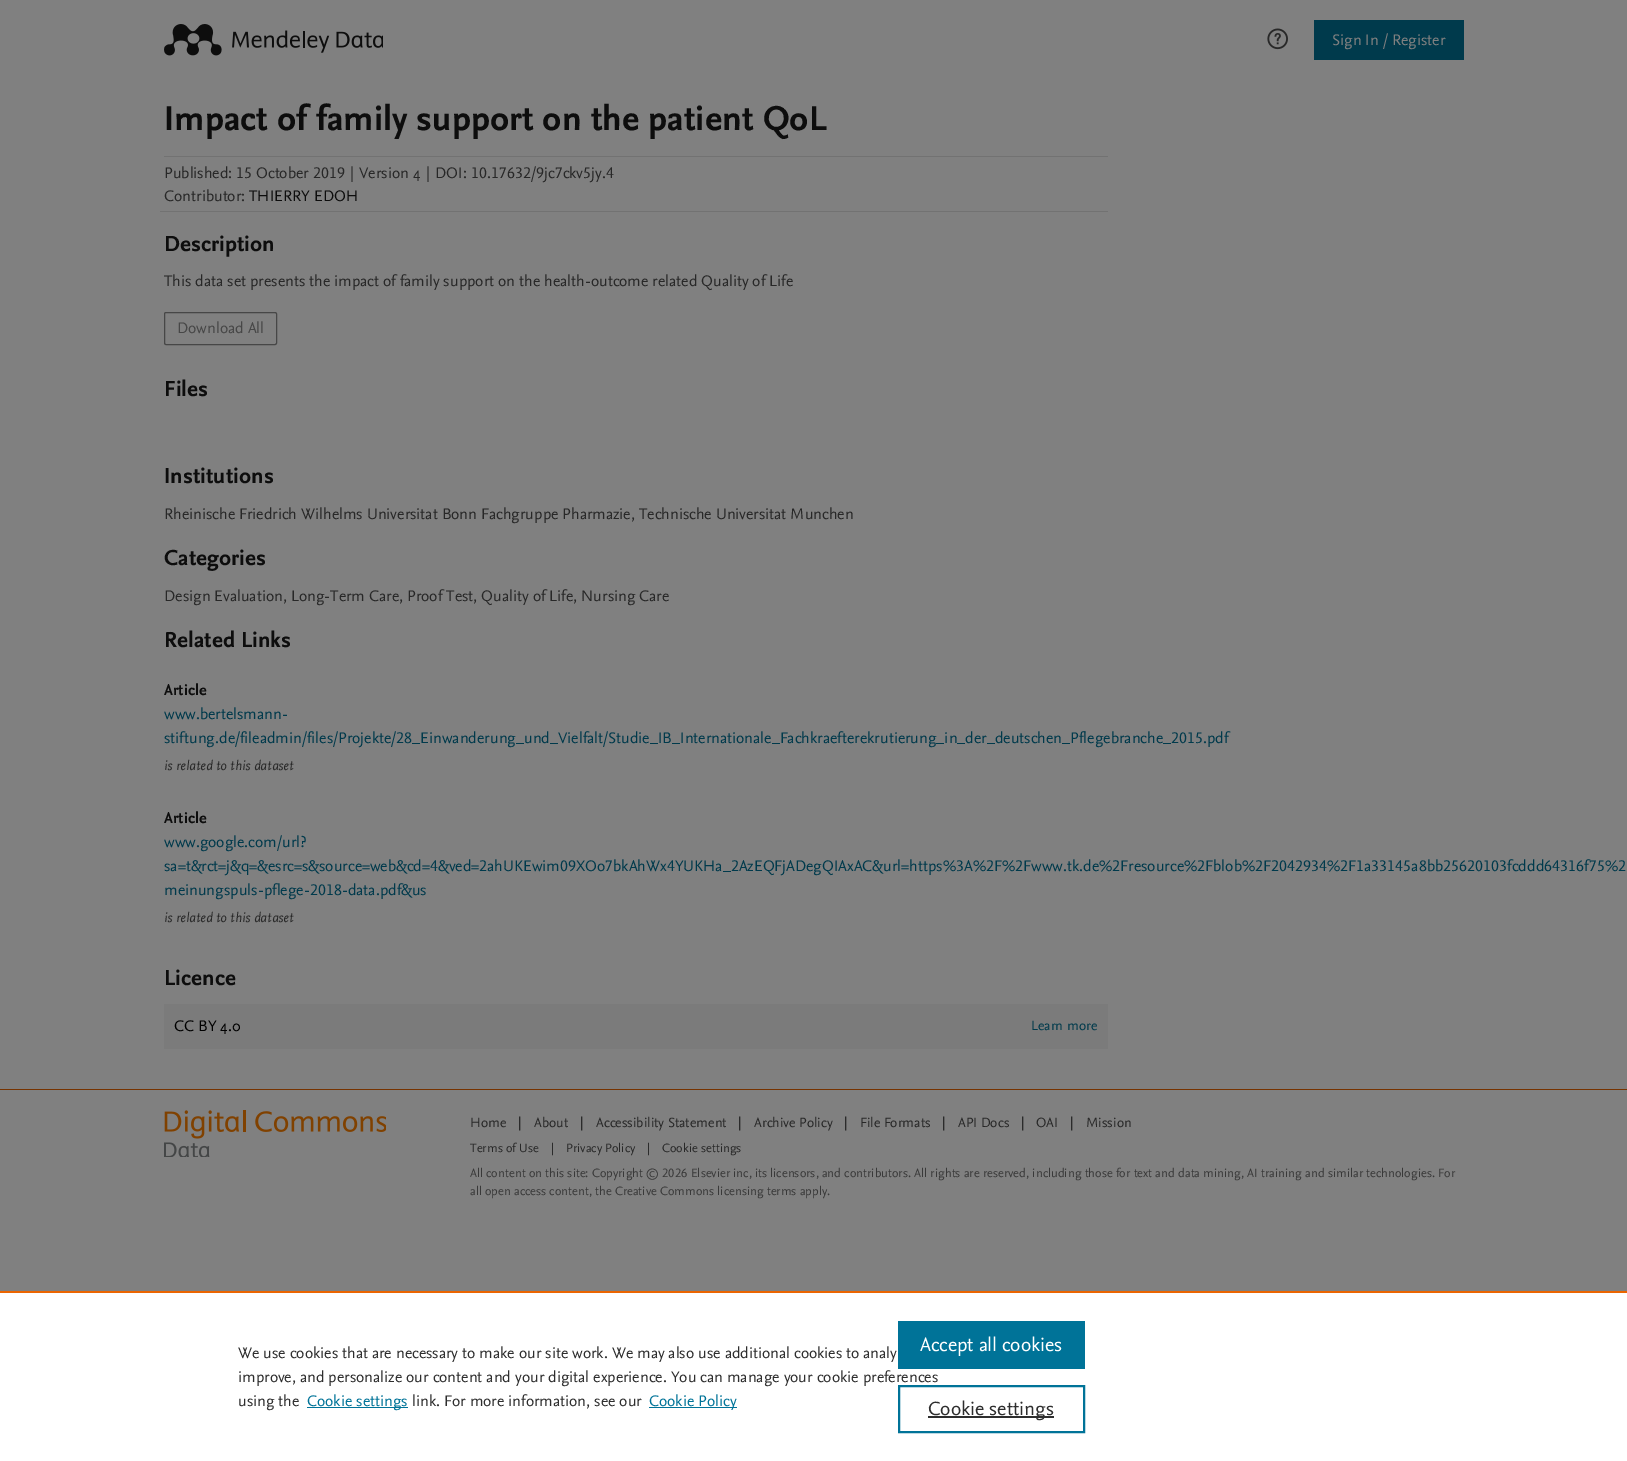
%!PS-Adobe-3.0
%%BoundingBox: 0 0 1627 1461
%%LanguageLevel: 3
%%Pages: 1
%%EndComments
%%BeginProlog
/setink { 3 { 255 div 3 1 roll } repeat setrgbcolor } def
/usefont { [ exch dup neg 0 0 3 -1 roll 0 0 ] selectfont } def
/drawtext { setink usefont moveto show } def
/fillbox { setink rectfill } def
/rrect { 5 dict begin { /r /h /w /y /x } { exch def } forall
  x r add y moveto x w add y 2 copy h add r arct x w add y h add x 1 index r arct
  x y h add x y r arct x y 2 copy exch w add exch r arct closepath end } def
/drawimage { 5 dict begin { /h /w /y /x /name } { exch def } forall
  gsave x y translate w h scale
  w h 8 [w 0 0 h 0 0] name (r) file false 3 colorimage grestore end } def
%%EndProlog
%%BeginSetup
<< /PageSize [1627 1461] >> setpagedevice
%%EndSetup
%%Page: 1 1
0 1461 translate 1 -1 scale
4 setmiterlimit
0 0 1627 1461 128 128 128 fillbox
(assets/img1.rgb) 164 24 219 32 drawimage
(assets/img2.rgb) 1267 28 21 22 drawimage
1314 20 150 40 0 58 76 fillbox
(Sign In / Register) 1332 45 /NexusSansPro-Regular 16 128 128 128 drawtext
(Impact of family support on the patient QoL) 164 130 /NexusSansPro-Bold 36 13 13 13 drawtext
164 156 944 1 114 114 114 fillbox
(Published:) 164 178 /NexusSansPro-Regular 16 40 40 40 drawtext
(15 October 2019) 236 178 /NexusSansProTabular-Regular 16 40 40 40 drawtext
(|) 350 178 /NexusSansPro-Regular 16 40 40 40 drawtext
(Version 4) 359 178 /NexusSansPro-Regular 16 40 40 40 drawtext
(|) 426 178 /NexusSansPro-Regular 16 40 40 40 drawtext
(DOI:) 435 178 /NexusSansPro-Regular 16 40 40 40 drawtext
(10.17632/9jc7ckv5jy.4) 471 178 /NexusSansProTabular-Regular 16 40 40 40 drawtext
160 211 948 1 114 114 114 fillbox
(Contributor:) 164 201 /NexusSansPro-Regular 16 40 40 40 drawtext
(THIERRY EDOH) 249 201 /NexusSansPro-Regular 16 13 13 13 drawtext
(Description) 164 251 /NexusSansPro-Bold 22.75 13 13 13 drawtext
(This data set presents the impact of family support on the health-outcome related Quality of Life) 164 286 /NexusSansPro-Regular 16 40 40 40 drawtext
71 71 71 setink
164.5 312.5 112 32 1.5 rrect stroke
(Download All) 177 333 /NexusSansPro-Regular 16 71 71 71 drawtext
(Files) 164 396 /NexusSansPro-Bold 22.75 13 13 13 drawtext
(Institutions) 164 483 /NexusSansPro-Bold 22.75 13 13 13 drawtext
(Rheinische Friedrich Wilhelms Universitat Bonn Fachgruppe Pharmazie, Technische Universitat Munchen) 164 519 /NexusSansPro-Regular 16 40 40 40 drawtext
(Categories) 164 565 /NexusSansPro-Bold 22.75 13 13 13 drawtext
(Design Evaluation, Long-Term Care, Proof Test, Quality of Life, Nursing Care) 164 601 /NexusSansPro-Regular 16 40 40 40 drawtext
(Related Links) 164 647 /NexusSansPro-Bold 22.75 13 13 13 drawtext
(Article) 164 695 /NexusSansPro-Bold 16 13 13 13 drawtext
(www.bertelsmann-) 164 719 /NexusSansPro-Regular 16 0 58 76 drawtext
(stiftung.de/fileadmin/files/Projekte/28_Einwanderung_und_Vielfalt/Studie_IB_Internationale_Fachkraefterekrutierung_in_der_deutschen_Pflegebranche_2015.pdf) 164 743 /NexusSansProTabular-Regular 16 0 58 76 drawtext
(is related to this dataset) 164 770 /NexusSansPro-Italic 14 40 40 40 drawtext
(Article) 164 823 /NexusSansPro-Bold 16 13 13 13 drawtext
(www.google.com/url?) 164 847 /NexusSansPro-Regular 16 0 58 76 drawtext
(sa=t&rct=j&q=&esrc=s&source=web&cd=4&ved=2ahUKEwim09XOo7bkAhWx4YUKHa_2AzEQFjADegQIAxAC&url=https%3A%2F%2Fwww.tk.de%2Fresource%2Fblob%2F2042934%2F1a33145a8bb25620103fcddd64316f75%2) 164 871 /NexusSansProTabular-Regular 16 0 58 76 drawtext
(meinungspuls-pflege-2018-data.pdf&us) 164 895 /NexusSansProTabular-Regular 16 0 58 76 drawtext
(is related to this dataset) 164 922 /NexusSansPro-Italic 14 40 40 40 drawtext
(Licence) 164 985 /NexusSansPro-Bold 22.75 13 13 13 drawtext
164 1004 944 45 123 123 123 fillbox
(CC BY 4.0) 174 1031 /NexusSansPro-Regular 16 0 0 0 drawtext
(Learn more) 1031 1030 /NexusSansPro-Regular 14 0 58 76 drawtext
0 1089 1627 1 118 51 0 fillbox
(assets/img3.rgb) 164 1110 222 47 drawimage
(Home) 470 1127 /NexusSansPro-Regular 14 40 40 40 drawtext
(|) 518 1127 /NexusSansPro-Regular 14 13 13 13 drawtext
(About) 534 1127 /NexusSansPro-Regular 14 40 40 40 drawtext
(|) 580 1127 /NexusSansPro-Regular 14 13 13 13 drawtext
(Accessibility Statement) 596 1127 /NexusSansPro-Regular 14 40 40 40 drawtext
(|) 738 1127 /NexusSansPro-Regular 14 13 13 13 drawtext
(Archive Policy) 754 1127 /NexusSansPro-Regular 14 40 40 40 drawtext
(|) 844 1127 /NexusSansPro-Regular 14 13 13 13 drawtext
(File Formats) 860 1127 /NexusSansPro-Regular 14 40 40 40 drawtext
(|) 942 1127 /NexusSansPro-Regular 14 13 13 13 drawtext
(API Docs) 958 1127 /NexusSansPro-Regular 14 40 40 40 drawtext
(|) 1021 1127 /NexusSansPro-Regular 14 13 13 13 drawtext
(OAI) 1036 1127 /NexusSansPro-Regular 14 40 40 40 drawtext
(|) 1070 1127 /NexusSansPro-Regular 14 13 13 13 drawtext
(Mission) 1086 1127 /NexusSansPro-Regular 14 40 40 40 drawtext
(Terms of Use) 470 1152 /NexusSansPro-Regular 12.65 40 40 40 drawtext
(|) 551 1152 /NexusSansPro-Regular 12.65 13 13 13 drawtext
(Privacy Policy) 566 1152 /NexusSansPro-Regular 12.65 40 40 40 drawtext
(|) 647 1152 /NexusSansPro-Regular 12.65 13 13 13 drawtext
(Cookie settings) 662 1152 /NexusSansPro-Regular 12.65 40 40 40 drawtext
(All content on this site: Copyright © 2026 Elsevier inc, its licensors, and contributors. All rights are reserved, including those for text and data mining, AI training and similar technologies. For) 470 1177 /NexusSansProTabular-Regular 12.65 57 57 57 drawtext
(all open access content, the Creative Commons licensing terms apply.) 470 1195 /NexusSansPro-Regular 12.65 57 57 57 drawtext
0 1293 1627 168 255 255 255 fillbox
0 1291 1627 2 235 101 0 fillbox
(We use cookies that are necessary to make our site work. We may also use additional cookies to analy) 238 1358 /NexusSansPro-Regular 16 46 46 46 drawtext
(improve, and personalize our content and your digital experience. You can manage your cookie preferences) 238 1382 /NexusSansPro-Regular 16 46 46 46 drawtext
(using the) 238 1406 /NexusSansPro-Regular 16 46 46 46 drawtext
307 1407 101 1 0 115 152 fillbox
(Cookie settings) 307 1406 /NexusSansPro-Regular 16 0 115 152 drawtext
(link. For more information, see our) 412 1406 /NexusSansPro-Regular 16 46 46 46 drawtext
649 1407 88 1 0 115 152 fillbox
(Cookie Policy) 649 1406 /NexusSansPro-Regular 16 0 115 152 drawtext
898 1321 187 48 0 115 152 fillbox
(Accept all cookies) 920 1351 /NexusSansPro-Regular 20 255 255 255 drawtext
0 115 152 setink
2 setlinewidth
899 1386 185 46 rectstroke
928 1416 126 2 46 46 46 fillbox
(Cookie settings) 928 1415 /NexusSansPro-Regular 20 46 46 46 drawtext
showpage
%%EOF
